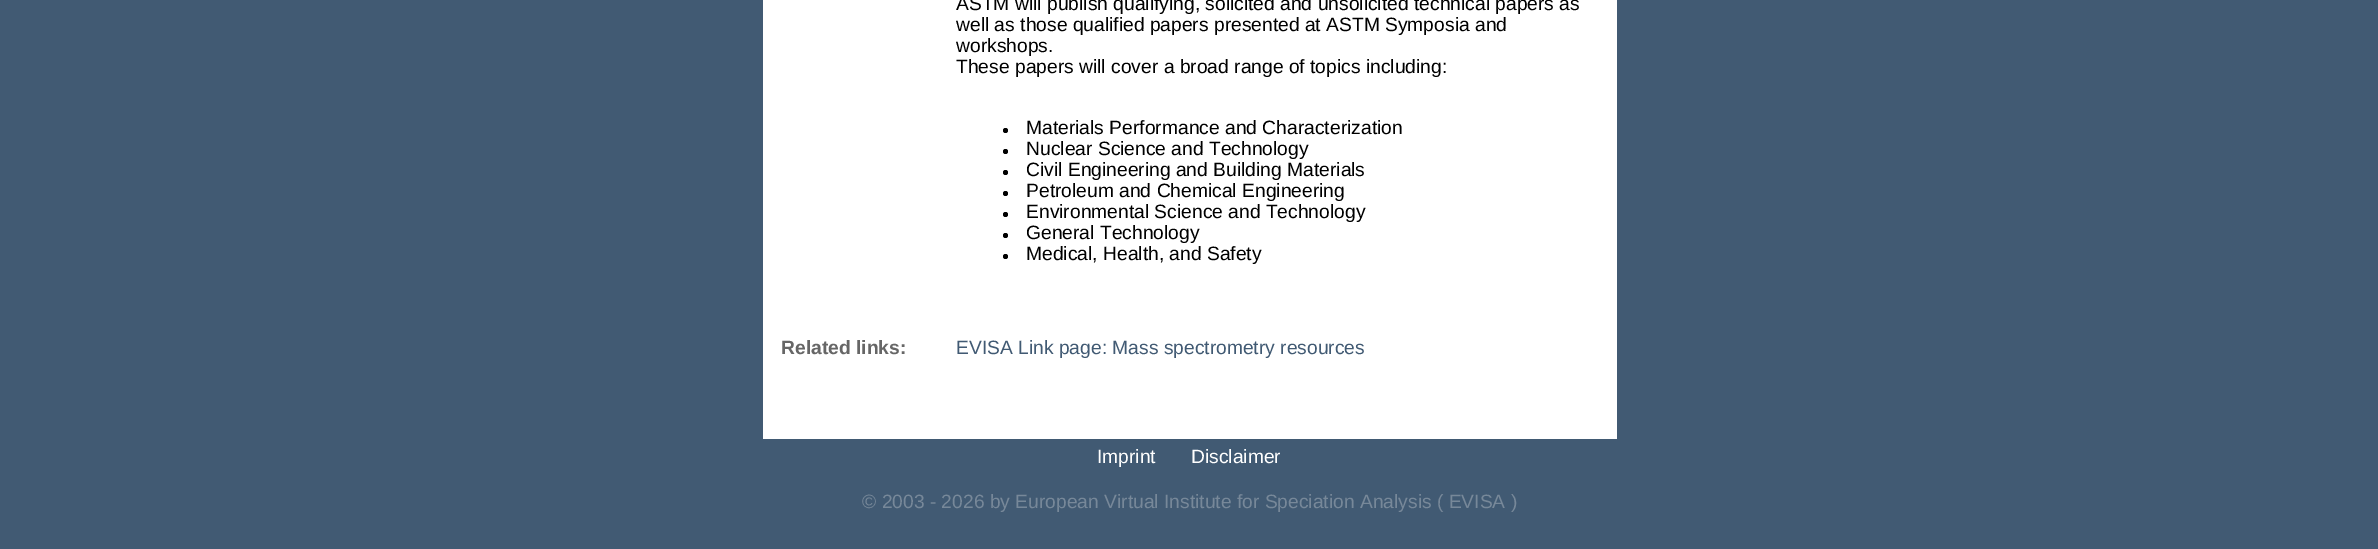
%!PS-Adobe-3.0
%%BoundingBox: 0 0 2378 549
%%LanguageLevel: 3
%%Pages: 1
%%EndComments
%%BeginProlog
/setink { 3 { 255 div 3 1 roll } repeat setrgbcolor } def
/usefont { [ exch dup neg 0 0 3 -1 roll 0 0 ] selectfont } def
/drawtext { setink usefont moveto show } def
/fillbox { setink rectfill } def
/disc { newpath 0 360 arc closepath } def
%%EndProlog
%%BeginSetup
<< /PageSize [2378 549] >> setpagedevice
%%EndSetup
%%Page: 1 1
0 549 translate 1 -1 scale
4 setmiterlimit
0 0 2378 549 65 90 115 fillbox
763 0 854 439 255 255 255 fillbox
(ASTM will publish qualifying, solicited and unsolicited technical papers as) 956 10 /LiberationSans-Regular 19.25 0 0 0 drawtext
(well as those qualified papers presented at ASTM Symposia and) 956 31 /LiberationSans-Regular 19.25 0 0 0 drawtext
(workshops.) 956 52 /LiberationSans-Regular 19.25 0 0 0 drawtext
(These papers will cover a broad range of topics including:) 956 73 /LiberationSans-Regular 19.25 0 0 0 drawtext
1005.5 130.5 2.5 disc fill
(Materials Performance and Characterization) 1026 134 /LiberationSans-Regular 19.25 0 0 0 drawtext
1005.5 151.5 2.5 disc fill
(Nuclear Science and Technology) 1026 155 /LiberationSans-Regular 19.25 0 0 0 drawtext
1005.5 172.5 2.5 disc fill
(Civil Engineering and Building Materials) 1026 176 /LiberationSans-Regular 19.25 0 0 0 drawtext
1005.5 193.5 2.5 disc fill
(Petroleum and Chemical Engineering) 1026 197 /LiberationSans-Regular 19.25 0 0 0 drawtext
1005.5 214.5 2.5 disc fill
(Environmental Science and Technology) 1026 218 /LiberationSans-Regular 19.25 0 0 0 drawtext
1005.5 235.5 2.5 disc fill
(General Technology) 1026 239 /LiberationSans-Regular 19.25 0 0 0 drawtext
1005.5 256.5 2.5 disc fill
(Medical, Health, and Safety) 1026 260 /LiberationSans-Regular 19.25 0 0 0 drawtext
(Related links:) 781 354 /LiberationSans-Bold 19.25 102 102 102 drawtext
(EVISA Link page: Mass spectrometry resources) 956 354 /LiberationSans-Regular 19.25 65 90 115 drawtext
(Imprint) 1097 463 /LiberationSans-Regular 19.25 255 255 255 drawtext
(Disclaimer) 1191 463 /LiberationSans-Regular 19.25 255 255 255 drawtext
(© 2003 - 2026 by European Virtual Institute for Speciation Analysis \( EVISA \)) 862 508 /LiberationSans-Regular 19.25 119 136 153 drawtext
showpage
%%EOF
